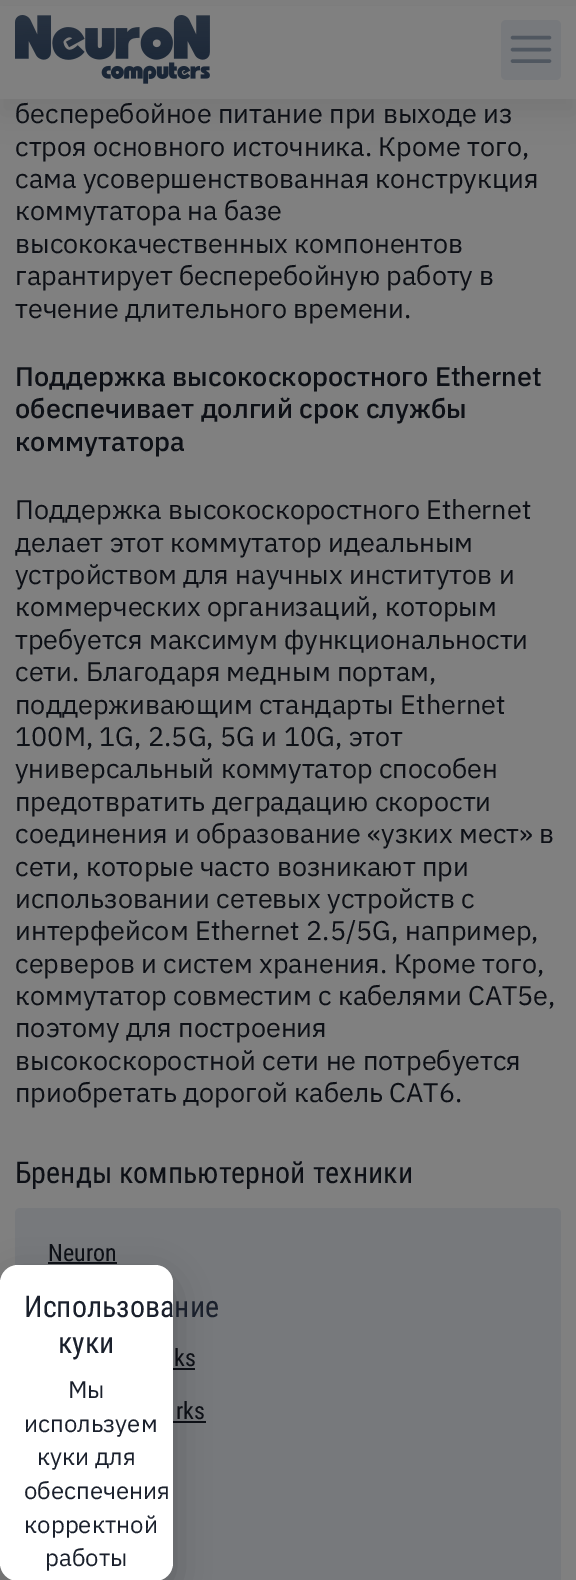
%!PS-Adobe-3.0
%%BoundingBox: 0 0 576 1580
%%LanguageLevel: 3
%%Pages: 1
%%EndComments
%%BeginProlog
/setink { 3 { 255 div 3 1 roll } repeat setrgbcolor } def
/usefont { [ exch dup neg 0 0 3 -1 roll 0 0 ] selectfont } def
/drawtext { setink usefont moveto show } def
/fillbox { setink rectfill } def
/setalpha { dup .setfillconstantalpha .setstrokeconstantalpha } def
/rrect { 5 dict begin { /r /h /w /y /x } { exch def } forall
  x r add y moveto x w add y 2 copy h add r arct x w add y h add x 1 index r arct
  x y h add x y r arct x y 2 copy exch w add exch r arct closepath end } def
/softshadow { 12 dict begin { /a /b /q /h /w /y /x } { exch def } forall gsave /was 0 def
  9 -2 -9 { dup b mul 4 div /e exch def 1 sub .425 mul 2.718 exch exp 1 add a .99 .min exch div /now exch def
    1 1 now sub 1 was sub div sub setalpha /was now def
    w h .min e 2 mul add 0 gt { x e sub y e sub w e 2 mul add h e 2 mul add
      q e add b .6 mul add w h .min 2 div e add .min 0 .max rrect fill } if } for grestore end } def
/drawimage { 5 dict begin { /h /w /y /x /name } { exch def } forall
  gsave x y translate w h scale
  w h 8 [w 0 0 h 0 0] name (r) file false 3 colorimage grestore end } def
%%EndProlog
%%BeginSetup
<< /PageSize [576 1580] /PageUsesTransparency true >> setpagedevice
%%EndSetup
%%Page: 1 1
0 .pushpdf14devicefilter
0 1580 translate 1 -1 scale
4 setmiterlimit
0 0 576 1580 128 128 128 fillbox
0 0 0 setink
0 15 576 99 0 13.5 0.08 softshadow
0 6 576 93 128 128 128 fillbox
(assets/img1.rgb) 15 15 195 69 drawimage
119 121 124 setink
501 20 60 60 5 rrect fill
80 87 96 setink
3.4 setlinewidth
1 setlinecap
1 setlinejoin
549.5 61 moveto 512.5 61 lineto 549.5 49.5 moveto 512.5 49.5 lineto 549.5 37.5 moveto 512.5 37.5 lineto stroke
(бесперебойное питание при выходе из) 15 123 /IBMPlexSans-Regular 27 13 16 22 drawtext
(строя основного источника. Кроме того,) 15 156 /IBMPlexSans-Regular 27 13 16 22 drawtext
(сама усовершенствованная конструкция) 15 188 /IBMPlexSans-Regular 27 13 16 22 drawtext
(коммутатора на базе) 15 220 /IBMPlexSans-Regular 27 13 16 22 drawtext
(высококачественных компонентов) 15 253 /IBMPlexSans-Regular 27 13 16 22 drawtext
(гарантирует бесперебойную работу в) 15 285 /IBMPlexSans-Regular 27 13 16 22 drawtext
(течение длительного времени.) 15 318 /IBMPlexSans-Regular 27 13 16 22 drawtext
(Поддержка высокоскоростного Ethernet) 15 386 /IBMPlexSans-Medium 27 13 16 22 drawtext
(обеспечивает долгий срок службы) 15 418 /IBMPlexSans-Medium 27 13 16 22 drawtext
(коммутатора) 15 451 /IBMPlexSans-Medium 27 13 16 22 drawtext
(Поддержка высокоскоростного Ethernet) 15 519 /IBMPlexSans-Regular 27 13 16 22 drawtext
(делает этот коммутатор идеальным) 15 552 /IBMPlexSans-Regular 27 13 16 22 drawtext
(устройством для научных институтов и) 15 584 /IBMPlexSans-Regular 27 13 16 22 drawtext
(коммерческих организаций, которым) 15 616 /IBMPlexSans-Regular 27 13 16 22 drawtext
(требуется максимум функциональности) 15 649 /IBMPlexSans-Regular 27 13 16 22 drawtext
(сети. Благодаря медным портам,) 15 681 /IBMPlexSans-Regular 27 13 16 22 drawtext
(поддерживающим стандарты Ethernet) 15 714 /IBMPlexSans-Regular 27 13 16 22 drawtext
(100M, 1G, 2.5G, 5G и 10G, этот) 15 746 /IBMPlexSans-Regular 27 13 16 22 drawtext
(универсальный коммутатор способен) 15 778 /IBMPlexSans-Regular 27 13 16 22 drawtext
(предотвратить деградацию скорости) 15 811 /IBMPlexSans-Regular 27 13 16 22 drawtext
(соединения и образование «узких мест» в) 15 843 /IBMPlexSans-Regular 27 13 16 22 drawtext
(сети, которые часто возникают при) 15 876 /IBMPlexSans-Regular 27 13 16 22 drawtext
(использовании сетевых устройств с) 15 908 /IBMPlexSans-Regular 27 13 16 22 drawtext
(интерфейсом Ethernet 2.5/5G, например,) 15 940 /IBMPlexSans-Regular 27 13 16 22 drawtext
(серверов и систем хранения. Кроме того,) 15 973 /IBMPlexSans-Regular 27 13 16 22 drawtext
(коммутатор совместим с кабелями CAT5e,) 15 1005 /IBMPlexSans-Regular 27 13 16 22 drawtext
(поэтому для построения) 15 1037 /IBMPlexSans-Regular 27 13 16 22 drawtext
(высокоскоростной сети не потребуется) 15 1070 /IBMPlexSans-Regular 27 13 16 22 drawtext
(приобретать дорогой кабель CAT6.) 15 1102 /IBMPlexSans-Regular 27 13 16 22 drawtext
(Бренды компьютерной техники) 15 1183 /RobotoCondensed-Regular 30 13 16 22 drawtext
119 121 124 setink
15 1208 546 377 5 rrect fill
(Neuron) 48 1261 /RobotoCondensed-Regular 24 13 16 22 drawtext
48 1262 69 2 13 16 22 fillbox
(ks) 174 1366 /RobotoCondensed-Regular 24 13 16 22 drawtext
173 1368 22 2 13 16 22 fillbox
(rks) 176 1419 /RobotoCondensed-Regular 24 13 16 22 drawtext
173 1421 33 2 13 16 22 fillbox
0 0 0 setink
0 1277 173 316 18 18 0.2 softshadow
255 255 255 setink
0 1265 173 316 18 rrect fill
(Использование) 24 1317 /RobotoCondensed-Regular 30 26 32 44 drawtext
(куки) 58 1353 /RobotoCondensed-Regular 30 26 32 44 drawtext
(Мы) 68 1398 /IBMPlexSans-Regular 24 26 32 44 drawtext
(используем) 24 1432 /IBMPlexSans-Regular 24 26 32 44 drawtext
(куки для) 37 1465 /IBMPlexSans-Regular 24 26 32 44 drawtext
(обеспечения) 24 1499 /IBMPlexSans-Regular 24 26 32 44 drawtext
(корректной) 24 1533 /IBMPlexSans-Regular 24 26 32 44 drawtext
(работы) 45 1566 /IBMPlexSans-Regular 24 26 32 44 drawtext
.poppdf14devicefilter showpage
%%EOF
